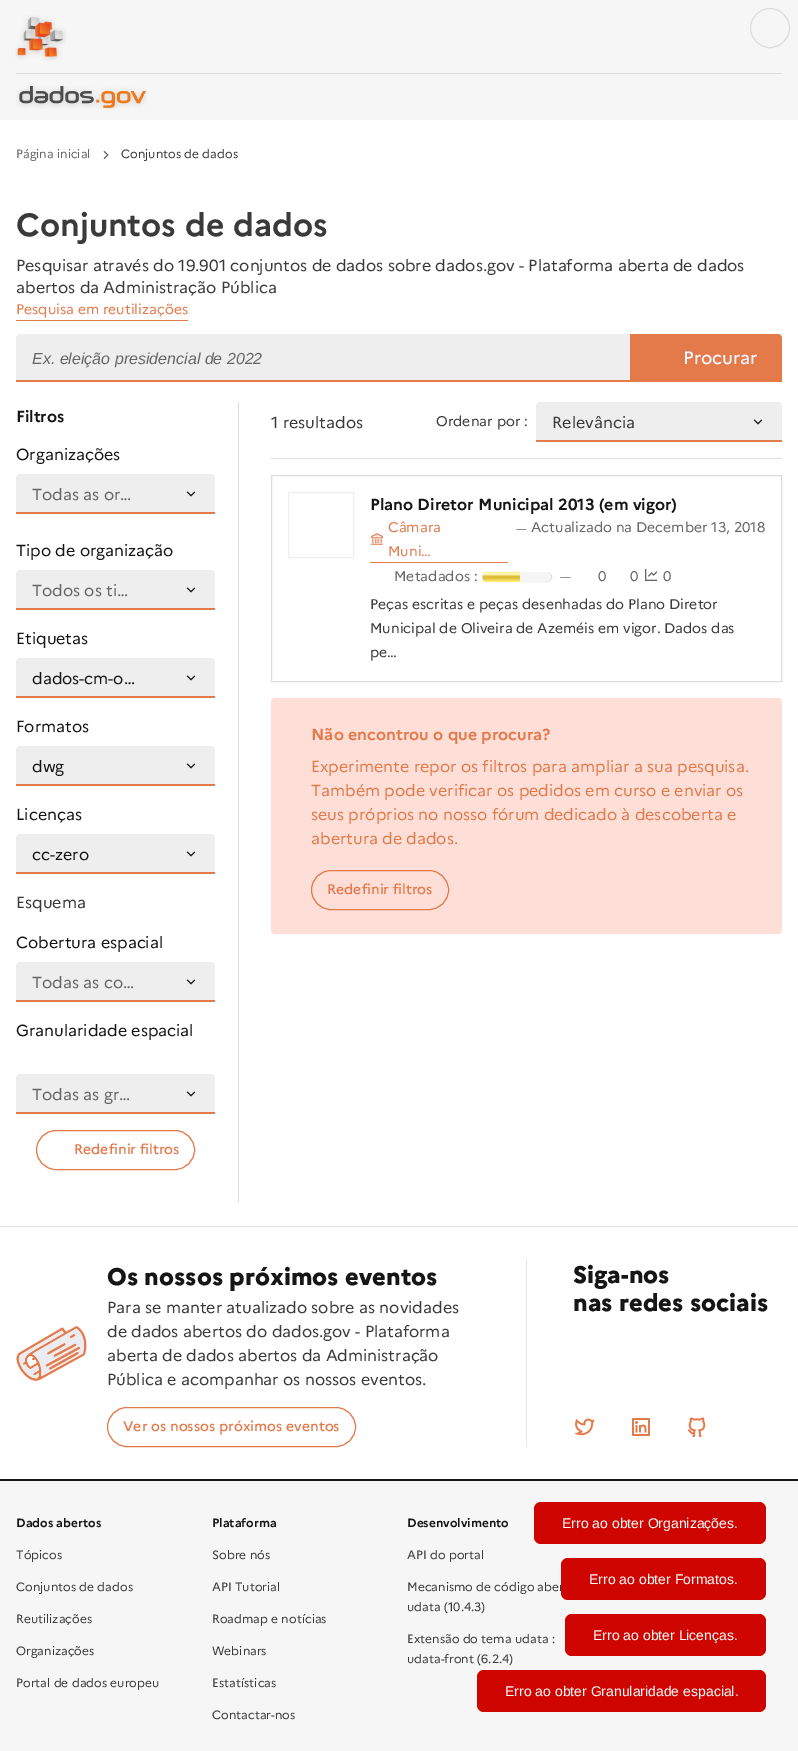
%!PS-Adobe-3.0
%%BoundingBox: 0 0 798 1751
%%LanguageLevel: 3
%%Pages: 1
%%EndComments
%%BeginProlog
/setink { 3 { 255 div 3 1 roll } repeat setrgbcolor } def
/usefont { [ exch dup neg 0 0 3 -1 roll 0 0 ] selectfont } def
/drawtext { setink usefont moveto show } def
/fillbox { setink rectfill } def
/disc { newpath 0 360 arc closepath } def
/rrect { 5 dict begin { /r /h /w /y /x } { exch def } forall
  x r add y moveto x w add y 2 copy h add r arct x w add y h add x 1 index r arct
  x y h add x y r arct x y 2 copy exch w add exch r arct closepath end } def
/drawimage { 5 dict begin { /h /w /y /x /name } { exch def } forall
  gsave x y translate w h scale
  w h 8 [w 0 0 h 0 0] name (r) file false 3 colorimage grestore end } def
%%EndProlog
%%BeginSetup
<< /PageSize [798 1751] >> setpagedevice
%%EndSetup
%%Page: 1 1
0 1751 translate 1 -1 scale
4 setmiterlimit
0 0 798 1751 255 255 255 fillbox
0 0 798 120 246 246 246 fillbox
(assets/img1.rgb) 15 15 51 46 drawimage
221 221 221 setink
770 28 19.5 disc stroke
16 73 766 1 221 221 221 fillbox
(assets/img2.rgb) 16 86 131 23 drawimage
(Página inicial) 16 158 /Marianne-Regular 12 102 102 102 drawtext
(assets/img3.rgb) 103 150 6 10 drawimage
(Conjuntos de dados) 121 158 /Marianne-Regular 12 58 58 58 drawtext
(Conjuntos de dados) 16 236 /Marianne-Bold 32 58 58 58 drawtext
(Pesquisar através do 19.901 conjuntos de dados sobre dados.gov - Plataforma aberta de dados) 16 271 /Marianne-Regular 16 58 58 58 drawtext
(abertos da Administração Pública) 16 293 /Marianne-Regular 16 58 58 58 drawtext
16 320 172 1 228 121 74 fillbox
(Pesquisa em reutilizações) 16 314 /Marianne-Regular 14 228 121 74 drawtext
238 238 238 setink
20 334 moveto 630 334 lineto 630 382 lineto 16 382 lineto 16 338 lineto 16 336 18 334 20 334 curveto closepath fill
16 380 614 2 228 121 74 fillbox
(Ex. eleição presidencial de 2022) 32 364 /LiberationSans-Italic 16 102 102 102 drawtext
228 121 74 setink
630 334 moveto 778 334 lineto 780 334 782 336 782 338 curveto 782 382 lineto 630 382 lineto closepath fill
(Procurar) 683 364 /Marianne-Medium 18 245 245 254 drawtext
238 402 1 800 221 221 221 fillbox
(Filtros) 16 422 /Marianne-Bold 16 22 22 22 drawtext
(Organizações) 16 460 /Marianne-Regular 16 22 22 22 drawtext
238 238 238 setink
20 474 moveto 211 474 lineto 213 474 215 476 215 478 curveto 215 514 lineto 16 514 lineto 16 478 lineto 16 476 18 474 20 474 curveto closepath fill
(assets/img4.rgb) 186 491 10 6 drawimage
16 512 199 2 228 121 74 fillbox
(Todas as or…) 32 500 /Marianne-Regular 16 102 102 102 drawtext
(Tipo de organização) 16 556 /Marianne-Regular 16 22 22 22 drawtext
238 238 238 setink
20 570 moveto 211 570 lineto 213 570 215 572 215 574 curveto 215 610 lineto 16 610 lineto 16 574 lineto 16 572 18 570 20 570 curveto closepath fill
(assets/img4.rgb) 186 587 10 6 drawimage
16 608 199 2 228 121 74 fillbox
(Todos os ti…) 32 596 /Marianne-Regular 16 102 102 102 drawtext
(Etiquetas) 16 644 /Marianne-Regular 16 22 22 22 drawtext
238 238 238 setink
20 658 moveto 211 658 lineto 213 658 215 660 215 662 curveto 215 698 lineto 16 698 lineto 16 662 lineto 16 660 18 658 20 658 curveto closepath fill
(assets/img4.rgb) 186 675 10 6 drawimage
16 696 199 2 228 121 74 fillbox
(dados-cm-o…) 32 684 /Marianne-Regular 16 22 22 22 drawtext
(Formatos) 16 732 /Marianne-Regular 16 22 22 22 drawtext
238 238 238 setink
20 746 moveto 211 746 lineto 213 746 215 748 215 750 curveto 215 786 lineto 16 786 lineto 16 750 lineto 16 748 18 746 20 746 curveto closepath fill
(assets/img4.rgb) 186 763 10 6 drawimage
16 784 199 2 228 121 74 fillbox
(dwg) 32 772 /Marianne-Regular 16 22 22 22 drawtext
(Licenças) 16 820 /Marianne-Regular 16 22 22 22 drawtext
238 238 238 setink
20 834 moveto 211 834 lineto 213 834 215 836 215 838 curveto 215 874 lineto 16 874 lineto 16 838 lineto 16 836 18 834 20 834 curveto closepath fill
(assets/img4.rgb) 186 851 10 6 drawimage
16 872 199 2 228 121 74 fillbox
(cc-zero) 32 860 /Marianne-Regular 16 22 22 22 drawtext
(Esquema) 16 908 /Marianne-Regular 16 58 58 58 drawtext
(Cobertura espacial) 16 948 /Marianne-Regular 16 22 22 22 drawtext
238 238 238 setink
20 962 moveto 211 962 lineto 213 962 215 964 215 966 curveto 215 1002 lineto 16 1002 lineto 16 966 lineto 16 964 18 962 20 962 curveto closepath fill
(assets/img4.rgb) 186 979 10 6 drawimage
16 1000 199 2 228 121 74 fillbox
(Todas as co…) 32 988 /Marianne-Regular 16 102 102 102 drawtext
(Granularidade espacial) 16 1036 /Marianne-Regular 16 22 22 22 drawtext
238 238 238 setink
20 1074 moveto 211 1074 lineto 213 1074 215 1076 215 1078 curveto 215 1114 lineto 16 1114 lineto 16 1078 lineto 16 1076 18 1074 20 1074 curveto closepath fill
(assets/img4.rgb) 186 1091 10 6 drawimage
16 1112 199 2 228 121 74 fillbox
(Todas as gr…) 32 1100 /Marianne-Regular 16 102 102 102 drawtext
228 121 74 setink
36.5 1130.5 158 39 19.5 rrect stroke
(Redefinir filtros) 74 1154 /Marianne-Medium 14 228 121 74 drawtext
(1 resultados) 271 428 /Marianne-Regular 16 58 58 58 drawtext
(Ordenar por :) 436 426 /Marianne-Regular 14 58 58 58 drawtext
238 238 238 setink
540 402 moveto 778 402 lineto 780 402 782 404 782 406 curveto 782 442 lineto 536 442 lineto 536 406 lineto 536 404 538 402 540 402 curveto closepath fill
(assets/img4.rgb) 753 419 10 6 drawimage
536 440 246 2 228 121 74 fillbox
(Relevância) 552 428 /Marianne-Regular 16 58 58 58 drawtext
271 458 511 1 221 221 221 fillbox
271.5 475.5 510 206 rectstroke
238 238 238 setink
288.5 492.5 65 65 rectstroke
(Plano Diretor Municipal 2013 \(em vigor\)) 370 510 /Marianne-Bold 16 22 22 22 drawtext
370 562 138 1 228 121 74 fillbox
(assets/img5.rgb) 371 533 12 12 drawimage
(Câmara) 388 532 /Marianne-Regular 14 228 121 74 drawtext
(Muni…) 388 556 /Marianne-Regular 14 228 121 74 drawtext
(—) 516 532 /Marianne-Regular 10 102 102 102 drawtext
(Actualizado na December 13, 2018) 531 532 /Marianne-Regular 14 102 102 102 drawtext
(Metadados :) 394 581 /Marianne-Regular 14 102 102 102 drawtext
221 221 221 setink
482.5 572.5 69 9 4.5 rrect stroke
245 245 245 setink
483 572 68 10 5 rrect fill
gsave 488 572 moveto 520 572 lineto 520 582 lineto 488 582 lineto 485 582 483 580 483 577 curveto 483 574 485 572 488 572 curveto closepath clip newpath
<< /ShadingType 2 /ColorSpace /DeviceRGB /Coords [502 572 502 582] /Extend [true true] /Function << /FunctionType 3 /Domain [0 1] /Functions [<< /FunctionType 2 /Domain [0 1] /C0 [1 0.933 0.467] /C1 [1 1 0.8] /N 1 >> << /FunctionType 2 /Domain [0 1] /C0 [1 1 0.8] /C1 [0.867 0.733 0.2] /N 1 >> << /FunctionType 2 /Domain [0 1] /C0 [0.867 0.733 0.2] /C1 [0.867 0.733 0.2] /N 1 >> << /FunctionType 2 /Domain [0 1] /C0 [0.867 0.733 0.2] /C1 [1 0.933 0.467] /N 1 >>] /Bounds [0.2 0.45 0.55] /Encode [0 1 0 1 0 1 0 1] >> >> shfill grestore
(—) 560 580 /Marianne-Regular 10 102 102 102 drawtext
(0) 598 581 /Marianne-Regular 14 102 102 102 drawtext
(0) 630 581 /Marianne-Regular 14 102 102 102 drawtext
(assets/img6.rgb) 645 569 13 12 drawimage
(0) 663 581 /Marianne-Regular 14 102 102 102 drawtext
(Peças escritas e peças desenhadas do Plano Diretor) 370 609 /Marianne-Regular 14 58 58 58 drawtext
(Municipal de Oliveira de Azeméis em vigor. Dados das) 370 633 /Marianne-Regular 14 58 58 58 drawtext
(pe…) 370 657 /Marianne-Regular 14 58 58 58 drawtext
253 223 216 setink
271 698 511 236 4 rrect fill
(Não encontrou o que procura?) 311 740 /Marianne-Bold 16 228 121 74 drawtext
(Experimente repor os filtros para ampliar a sua pesquisa.) 311 772 /Marianne-Regular 16 228 121 74 drawtext
(Também pode verificar os pedidos em curso e enviar os) 311 796 /Marianne-Regular 16 228 121 74 drawtext
(seus próprios no nosso fórum dedicado à descoberta e) 311 820 /Marianne-Regular 16 228 121 74 drawtext
(abertura de dados.) 311 844 /Marianne-Regular 16 228 121 74 drawtext
311.5 870.5 137 39 19.5 rrect stroke
(Redefinir filtros) 327 894 /Marianne-Medium 14 228 121 74 drawtext
0 1226 798 1 221 221 221 fillbox
(assets/img7.rgb) 16 1326 71 55 drawimage
(Os nossos próximos eventos) 107 1285 /Marianne-ExtraBold 24 22 22 22 drawtext
(Para se manter atualizado sobre as novidades) 107 1313 /Marianne-Regular 16 58 58 58 drawtext
(de dados abertos do dados.gov - Plataforma) 107 1337 /Marianne-Regular 16 58 58 58 drawtext
(aberta de dados abertos da Administração) 107 1361 /Marianne-Regular 16 58 58 58 drawtext
(Pública e acompanhar os nossos eventos.) 107 1385 /Marianne-Regular 16 58 58 58 drawtext
228 121 74 setink
107.5 1407.5 248 39 19.5 rrect stroke
(Ver os nossos próximos eventos) 123 1431 /Marianne-Medium 14 228 121 74 drawtext
526 1259 1 188 229 229 229 fillbox
(Siga-nos) 573 1283 /Marianne-ExtraBold 24 22 22 22 drawtext
(nas redes sociais) 573 1311 /Marianne-ExtraBold 24 22 22 22 drawtext
(assets/img8.rgb) 574 1418 21 18 drawimage
(assets/img9.rgb) 632 1418 18 18 drawimage
(assets/img10.rgb) 687 1417 19 21 drawimage
0 1479 798 2 22 22 22 fillbox
0 1481 798 270 246 246 246 fillbox
(Dados abertos) 16 1527 /Marianne-Bold 12 22 22 22 drawtext
(Tópicos) 16 1559 /Marianne-Regular 12 58 58 58 drawtext
(Conjuntos de dados) 16 1591 /Marianne-Regular 12 58 58 58 drawtext
(Reutilizações) 16 1623 /Marianne-Regular 12 58 58 58 drawtext
(Organizações) 16 1655 /Marianne-Regular 12 58 58 58 drawtext
(Portal de dados europeu) 16 1687 /Marianne-Regular 12 58 58 58 drawtext
(Plataforma) 212 1527 /Marianne-Bold 12 22 22 22 drawtext
(Sobre nós) 212 1559 /Marianne-Regular 12 58 58 58 drawtext
(API Tutorial) 212 1591 /Marianne-Regular 12 58 58 58 drawtext
(Roadmap e notícias) 212 1623 /Marianne-Regular 12 58 58 58 drawtext
(Webinars) 212 1655 /Marianne-Regular 12 58 58 58 drawtext
(Estatísticas) 212 1687 /Marianne-Regular 12 58 58 58 drawtext
(Contactar-nos) 212 1719 /Marianne-Regular 12 58 58 58 drawtext
(Desenvolvimento) 407 1527 /Marianne-Bold 12 22 22 22 drawtext
(API do portal) 407 1559 /Marianne-Regular 12 58 58 58 drawtext
(Mecanismo de código aber) 407 1591 /Marianne-Regular 12 58 58 58 drawtext
(udata \(10.4.3\)) 407 1611 /Marianne-Regular 12 58 58 58 drawtext
(Extensão do tema udata :) 407 1643 /Marianne-Regular 12 58 58 58 drawtext
(udata-front \(6.2.4\)) 407 1663 /Marianne-Regular 12 58 58 58 drawtext
206 5 0 setink
534 1502 232 42 7 rrect fill
(Erro ao obter Organizações.) 562 1528 /LiberationSans-Regular 14 255 255 255 drawtext
206 5 0 setink
561 1558 205 42 7 rrect fill
(Erro ao obter Formatos.) 589 1584 /LiberationSans-Regular 14 255 255 255 drawtext
206 5 0 setink
565 1614 201 42 7 rrect fill
(Erro ao obter Licenças.) 593 1640 /LiberationSans-Regular 14 255 255 255 drawtext
206 5 0 setink
477 1670 289 42 7 rrect fill
(Erro ao obter Granularidade espacial.) 505 1696 /LiberationSans-Regular 14 255 255 255 drawtext
showpage
%%EOF
